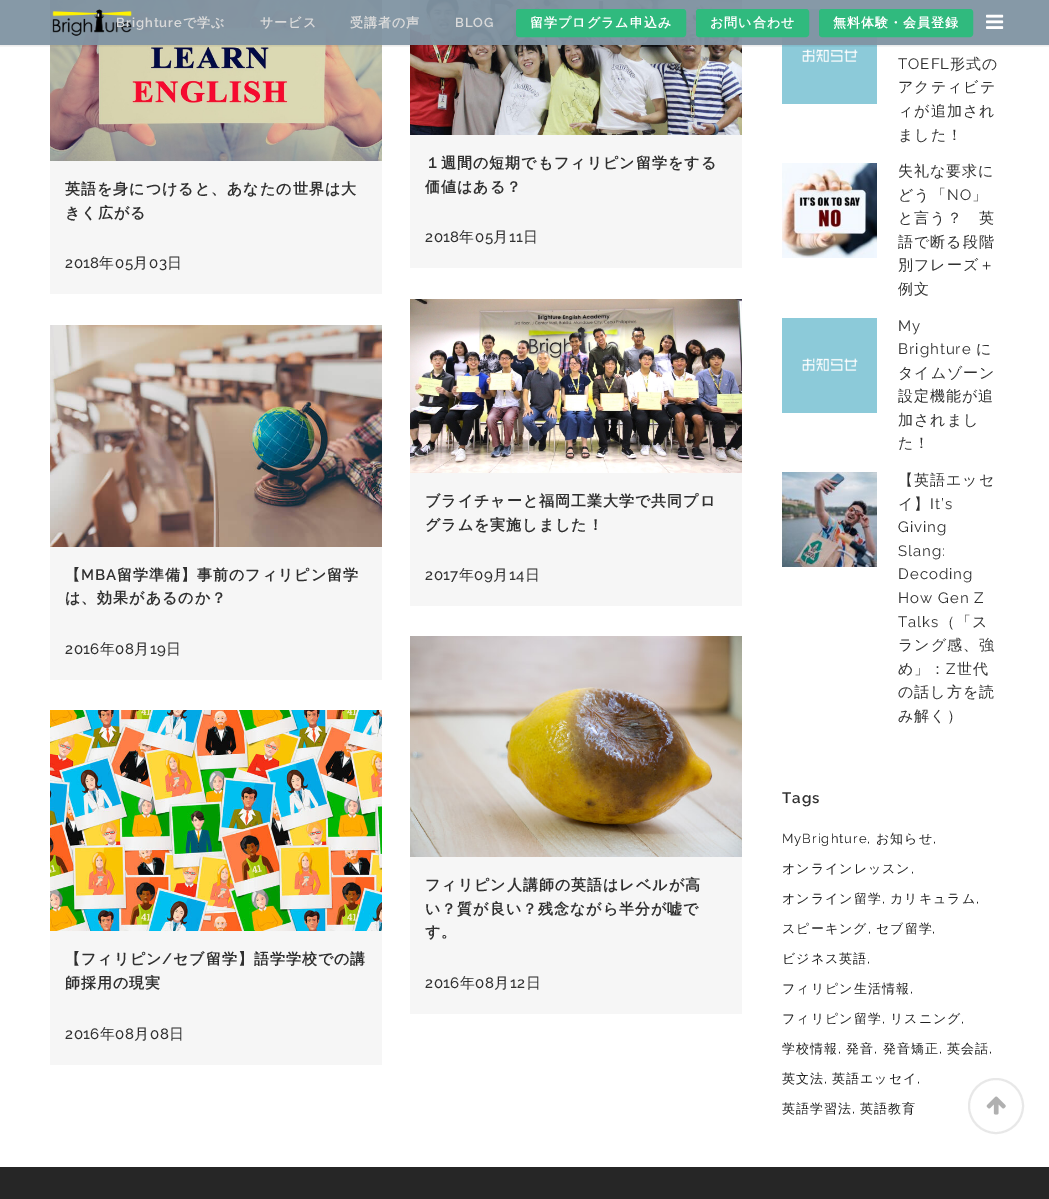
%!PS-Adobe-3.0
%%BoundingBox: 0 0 1049 1199
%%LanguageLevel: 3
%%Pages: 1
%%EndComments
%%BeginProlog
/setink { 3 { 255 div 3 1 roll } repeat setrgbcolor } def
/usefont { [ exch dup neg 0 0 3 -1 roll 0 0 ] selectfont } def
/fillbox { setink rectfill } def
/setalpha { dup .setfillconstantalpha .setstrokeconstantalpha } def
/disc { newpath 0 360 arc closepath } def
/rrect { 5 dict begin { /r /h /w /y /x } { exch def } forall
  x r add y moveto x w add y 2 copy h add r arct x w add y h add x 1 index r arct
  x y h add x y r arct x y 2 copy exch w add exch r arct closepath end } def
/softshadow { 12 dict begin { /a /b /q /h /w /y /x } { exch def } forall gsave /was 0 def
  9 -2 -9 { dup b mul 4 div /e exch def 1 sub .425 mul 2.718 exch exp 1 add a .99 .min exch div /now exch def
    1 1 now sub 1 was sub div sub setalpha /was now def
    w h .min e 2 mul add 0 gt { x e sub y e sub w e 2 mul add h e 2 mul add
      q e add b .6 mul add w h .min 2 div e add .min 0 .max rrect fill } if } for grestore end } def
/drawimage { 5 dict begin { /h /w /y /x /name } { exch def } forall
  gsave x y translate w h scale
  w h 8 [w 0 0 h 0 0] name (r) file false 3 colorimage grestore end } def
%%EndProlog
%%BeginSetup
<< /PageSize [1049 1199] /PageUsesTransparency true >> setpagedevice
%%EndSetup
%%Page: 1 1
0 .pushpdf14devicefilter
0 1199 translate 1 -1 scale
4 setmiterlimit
0 0 1049 1199 255 255 255 fillbox
(assets/img3.rgb) 50 0 332 161 drawimage
(assets/img4.rgb) 410 0 332 135 drawimage
(assets/img9.rgb) 782 9 95 95 drawimage
gsave
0 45 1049 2 rectclip
0 0 0 setink
0 1 1049 45 0 1.5 0.11 softshadow
grestore
0.95 setalpha
0 0 1049 45 128 147 162 fillbox
1 setalpha
(assets/img1.rgb) 52 9 80 27 drawimage
/Raleway-SemiBold 13 usefont
218 218 218 setink
116 27 moveto 1 0 (Brighture) ashow
/WenQuanYiZenHei-Bold 13 usefont
183 27 moveto 1 0 (で学ぶ) ashow
260 27 moveto 1 0 (サービス) ashow
350 27 moveto 1 0 (受講者の声) ashow
/Raleway-SemiBold 13 usefont
455 27 moveto 1 0 (BLOG) ashow
48 186 126 setink
517 10 168 26 2 rrect gsave fill grestore
2 setlinewidth
stroke
/WenQuanYiZenHei-Bold 13 usefont
255 255 255 setink
530 27 moveto 1 0 (留学プログラム申込み) ashow
48 186 126 setink
697 10 111 26 2 rrect gsave fill grestore
stroke
255 255 255 setink
710 27 moveto 1 0 (お問い合わせ) ashow
48 186 126 setink
820 10 152 26 2 rrect gsave fill grestore
stroke
255 255 255 setink
833 27 moveto 1 0 (無料体験・会員登録) ashow
(assets/img2.rgb) 986 14 18 15 drawimage
50 161 332 133 246 246 246 fillbox
/WenQuanYiZenHei-Bold 15 usefont
48 48 48 setink
65 194 moveto 1 0 (英語を身につけると、あなたの世界は大) ashow
65 218 moveto 1 0 (きく広がる) ashow
/Raleway-Medium 15 usefont
65 268 moveto 0.5 0 (2018) ashow
/WenQuanYiZenHei-Medium 15 usefont
99 268 moveto 0.5 0 (年) ashow
/Raleway-Medium 15 usefont
115 268 moveto 0.5 0 (05) ashow
/WenQuanYiZenHei-Medium 15 usefont
133 268 moveto 0.5 0 (月) ashow
/Raleway-Medium 15 usefont
149 268 moveto 0.5 0 (03) ashow
/WenQuanYiZenHei-Medium 15 usefont
167 268 moveto 0.5 0 (日) ashow
410 135 332 133 246 246 246 fillbox
/WenQuanYiZenHei-Bold 15 usefont
48 48 48 setink
425 168 moveto 1 0 (１週間の短期でもフィリピン留学をする) ashow
425 192 moveto 1 0 (価値はある？) ashow
/Raleway-Medium 15 usefont
425 242 moveto 0.5 0 (2018) ashow
/WenQuanYiZenHei-Medium 15 usefont
459 242 moveto 0.5 0 (年) ashow
/Raleway-Medium 15 usefont
475 242 moveto 0.5 0 (05) ashow
/WenQuanYiZenHei-Medium 15 usefont
493 242 moveto 0.5 0 (月) ashow
/Raleway-Medium 15 usefont
509 242 moveto 0.5 0 (11) ashow
/WenQuanYiZenHei-Medium 15 usefont
523 242 moveto 0.5 0 (日) ashow
(assets/img5.rgb) 410 299 332 174 drawimage
410 473 332 133 246 246 246 fillbox
/WenQuanYiZenHei-Bold 15 usefont
48 48 48 setink
425 506 moveto 1 0 (ブライチャーと福岡工業大学で共同プロ) ashow
425 530 moveto 1 0 (グラムを実施しました！) ashow
/Raleway-Medium 15 usefont
425 580 moveto 0.5 0 (2017) ashow
/WenQuanYiZenHei-Medium 15 usefont
459 580 moveto 0.5 0 (年) ashow
/Raleway-Medium 15 usefont
474 580 moveto 0.5 0 (09) ashow
/WenQuanYiZenHei-Medium 15 usefont
493 580 moveto 0.5 0 (月) ashow
/Raleway-Medium 15 usefont
509 580 moveto 0.5 0 (14) ashow
/WenQuanYiZenHei-Medium 15 usefont
525 580 moveto 0.5 0 (日) ashow
(assets/img6.rgb) 50 325 332 222 drawimage
50 547 332 133 246 246 246 fillbox
/WenQuanYiZenHei-Bold 15 usefont
48 48 48 setink
65 580 moveto 1 0 (【) ashow
/Raleway-SemiBold 15 usefont
81 580 moveto 1 0 (MBA) ashow
/WenQuanYiZenHei-Bold 15 usefont
117 580 moveto 1 0 (留学準備】事前のフィリピン留学) ashow
65 603 moveto 1 0 (は、効果があるのか？) ashow
/Raleway-Medium 15 usefont
65 654 moveto 0.5 0 (2016) ashow
/WenQuanYiZenHei-Medium 15 usefont
100 654 moveto 0.5 0 (年) ashow
/Raleway-Medium 15 usefont
115 654 moveto 0.5 0 (08) ashow
/WenQuanYiZenHei-Medium 15 usefont
134 654 moveto 0.5 0 (月) ashow
/Raleway-Medium 15 usefont
150 654 moveto 0.5 0 (19) ashow
/WenQuanYiZenHei-Medium 15 usefont
166 654 moveto 0.5 0 (日) ashow
(assets/img7.rgb) 50 710 332 221 drawimage
50 931 332 134 246 246 246 fillbox
/WenQuanYiZenHei-Bold 15 usefont
48 48 48 setink
65 964 moveto 1 0 (【フィリピン) ashow
/Raleway-SemiBold 15 usefont
162 964 moveto 1 0 (/) ashow
/WenQuanYiZenHei-Bold 15 usefont
173 964 moveto 1 0 (セブ留学】語学学校での講) ashow
65 988 moveto 1 0 (師採用の現実) ashow
/Raleway-Medium 15 usefont
65 1039 moveto 0.5 0 (2016) ashow
/WenQuanYiZenHei-Medium 15 usefont
100 1039 moveto 0.5 0 (年) ashow
/Raleway-Medium 15 usefont
115 1039 moveto 0.5 0 (08) ashow
/WenQuanYiZenHei-Medium 15 usefont
134 1039 moveto 0.5 0 (月) ashow
/Raleway-Medium 15 usefont
150 1039 moveto 0.5 0 (08) ashow
/WenQuanYiZenHei-Medium 15 usefont
169 1039 moveto 0.5 0 (日) ashow
(assets/img8.rgb) 410 636 332 221 drawimage
410 857 332 157 246 246 246 fillbox
/WenQuanYiZenHei-Bold 15 usefont
48 48 48 setink
425 890 moveto 1 0 (フィリピン人講師の英語はレベルが高) ashow
425 914 moveto 1 0 (い？質が良い？残念ながら半分が嘘で) ashow
425 937 moveto 1 0 (す。) ashow
/Raleway-Medium 15 usefont
425 988 moveto 0.5 0 (2016) ashow
/WenQuanYiZenHei-Medium 15 usefont
460 988 moveto 0.5 0 (年) ashow
/Raleway-Medium 15 usefont
475 988 moveto 0.5 0 (08) ashow
/WenQuanYiZenHei-Medium 15 usefont
494 988 moveto 0.5 0 (月) ashow
/Raleway-Medium 15 usefont
510 988 moveto 0.5 0 (12) ashow
/WenQuanYiZenHei-Medium 15 usefont
526 988 moveto 0.5 0 (日) ashow
/Raleway-Regular 15 usefont
898 69 moveto 1 0 (TOEFL) ashow
/WenQuanYiZenHei-Medium 15 usefont
950 69 moveto 1 0 (形式の) ashow
898 92 moveto 1 0 (アクティビテ) ashow
898 116 moveto 1 0 (ィが追加され) ashow
898 140 moveto 1 0 (ました！) ashow
(assets/img10.rgb) 782 163 95 95 drawimage
898 176 moveto 1 0 (失礼な要求に) ashow
898 200 moveto 1 0 (どう「) ashow
/Raleway-Regular 15 usefont
947 200 moveto 1 0 (NO) ashow
/WenQuanYiZenHei-Medium 15 usefont
972 200 moveto 1 0 (」) ashow
898 223 moveto 1 0 (と言う？　英) ashow
898 247 moveto 1 0 (語で断る段階) ashow
898 270 moveto 1 0 (別フレーズ＋) ashow
898 294 moveto 1 0 (例文) ashow
(assets/img11.rgb) 782 318 95 95 drawimage
/Raleway-Regular 15 usefont
898 331 moveto 1 0 (My) ashow
898 354 moveto 1 0 (Brighture) ashow
/WenQuanYiZenHei-Medium 15 usefont
976 354 moveto 1 0 (に) ashow
898 378 moveto 1 0 (タイムゾーン) ashow
898 401 moveto 1 0 (設定機能が追) ashow
898 425 moveto 1 0 (加されまし) ashow
898 448 moveto 1 0 (た！) ashow
(assets/img12.rgb) 782 472 95 95 drawimage
898 485 moveto 1 0 (【英語エッセ) ashow
898 509 moveto 1 0 (イ】) ashow
/Raleway-Regular 15 usefont
930 509 moveto 1 0 (It’s) ashow
898 532 moveto 1 0 (Giving) ashow
898 556 moveto 1 0 (Slang:) ashow
898 579 moveto 1 0 (Decoding) ashow
898 603 moveto 1 0 (How Gen Z) ashow
898 627 moveto 1 0 (Talks) ashow
/WenQuanYiZenHei-Medium 15 usefont
940 627 moveto 1 0 (（「ス) ashow
898 650 moveto 1 0 (ラング感、強) ashow
898 674 moveto 1 0 (め」：) ashow
/Raleway-Regular 15 usefont
946 674 moveto 1 0 (Z) ashow
/WenQuanYiZenHei-Medium 15 usefont
957 674 moveto 1 0 (世代) ashow
898 697 moveto 1 0 (の話し方を読) ashow
898 721 moveto 1 0 (み解く）) ashow
/Raleway-SemiBold 15 usefont
782 803 moveto 1 0 (Tags) ashow
/Raleway-Regular 13 usefont
32 32 32 setink
782 843 moveto 1 0 (MyBrighture,) ashow
/WenQuanYiZenHei-Medium 13 usefont
876 843 moveto 1 0 (お知らせ) ashow
/Raleway-Regular 13 usefont
933 843 moveto 1 0 (,) ashow
/WenQuanYiZenHei-Medium 13 usefont
782 873 moveto 1 0 (オンラインレッスン) ashow
/Raleway-Regular 13 usefont
911 873 moveto 1 0 (,) ashow
/WenQuanYiZenHei-Medium 13 usefont
782 903 moveto 1 0 (オンライン留学) ashow
/Raleway-Regular 13 usefont
882 903 moveto 1 0 (,) ashow
/WenQuanYiZenHei-Medium 13 usefont
890 903 moveto 1 0 (カリキュラム) ashow
/Raleway-Regular 13 usefont
976 903 moveto 1 0 (,) ashow
/WenQuanYiZenHei-Medium 13 usefont
782 933 moveto 1 0 (スピーキング) ashow
/Raleway-Regular 13 usefont
868 933 moveto 1 0 (,) ashow
/WenQuanYiZenHei-Medium 13 usefont
876 933 moveto 1 0 (セブ留学) ashow
/Raleway-Regular 13 usefont
932 933 moveto 1 0 (,) ashow
/WenQuanYiZenHei-Medium 13 usefont
782 963 moveto 1 0 (ビジネス英語) ashow
/Raleway-Regular 13 usefont
867 963 moveto 1 0 (,) ashow
/WenQuanYiZenHei-Medium 13 usefont
782 993 moveto 1 0 (フィリピン生活情報) ashow
/Raleway-Regular 13 usefont
910 993 moveto 1 0 (,) ashow
/WenQuanYiZenHei-Medium 13 usefont
782 1023 moveto 1 0 (フィリピン留学) ashow
/Raleway-Regular 13 usefont
882 1023 moveto 1 0 (,) ashow
/WenQuanYiZenHei-Medium 13 usefont
890 1023 moveto 1 0 (リスニング) ashow
/Raleway-Regular 13 usefont
961 1023 moveto 1 0 (,) ashow
/WenQuanYiZenHei-Medium 13 usefont
782 1053 moveto 1 0 (学校情報) ashow
/Raleway-Regular 13 usefont
838 1053 moveto 1 0 (,) ashow
/WenQuanYiZenHei-Medium 13 usefont
846 1053 moveto 1 0 (発音) ashow
/Raleway-Regular 13 usefont
874 1053 moveto 1 0 (,) ashow
/WenQuanYiZenHei-Medium 13 usefont
883 1053 moveto 1 0 (発音矯正) ashow
/Raleway-Regular 13 usefont
939 1053 moveto 1 0 (,) ashow
/WenQuanYiZenHei-Medium 13 usefont
947 1053 moveto 1 0 (英会話) ashow
/Raleway-Regular 13 usefont
989 1053 moveto 1 0 (,) ashow
/WenQuanYiZenHei-Medium 13 usefont
782 1083 moveto 1 0 (英文法) ashow
/Raleway-Regular 13 usefont
824 1083 moveto 1 0 (,) ashow
/WenQuanYiZenHei-Medium 13 usefont
832 1083 moveto 1 0 (英語エッセイ) ashow
/Raleway-Regular 13 usefont
917 1083 moveto 1 0 (,) ashow
/WenQuanYiZenHei-Medium 13 usefont
782 1113 moveto 1 0 (英語学習法) ashow
/Raleway-Regular 13 usefont
852 1113 moveto 1 0 (,) ashow
/WenQuanYiZenHei-Medium 13 usefont
860 1113 moveto 1 0 (英語教育) ashow
232 232 232 setink
996 1106 27 disc stroke
(assets/img13.rgb) 986 1096 20 19 drawimage
0 1167 1049 32 38 38 38 fillbox
.poppdf14devicefilter showpage
%%EOF
